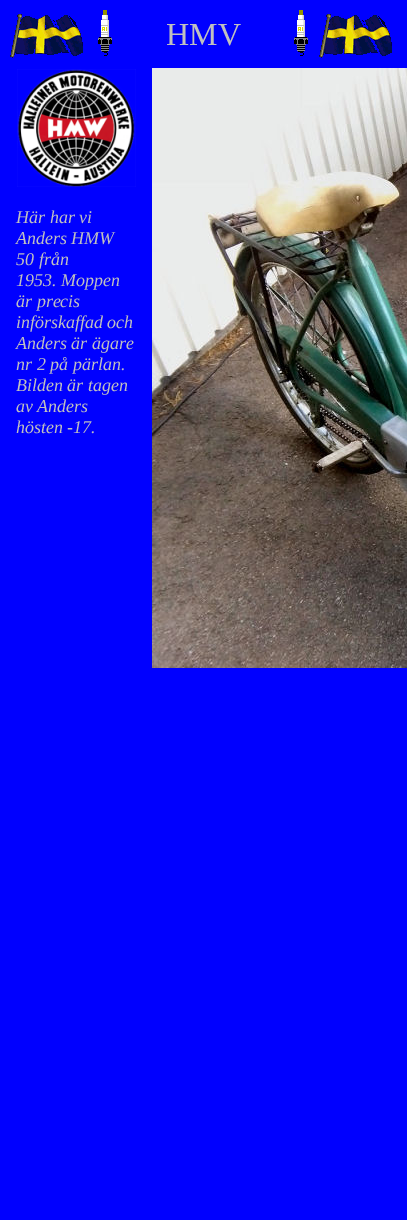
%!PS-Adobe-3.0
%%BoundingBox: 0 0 407 1220
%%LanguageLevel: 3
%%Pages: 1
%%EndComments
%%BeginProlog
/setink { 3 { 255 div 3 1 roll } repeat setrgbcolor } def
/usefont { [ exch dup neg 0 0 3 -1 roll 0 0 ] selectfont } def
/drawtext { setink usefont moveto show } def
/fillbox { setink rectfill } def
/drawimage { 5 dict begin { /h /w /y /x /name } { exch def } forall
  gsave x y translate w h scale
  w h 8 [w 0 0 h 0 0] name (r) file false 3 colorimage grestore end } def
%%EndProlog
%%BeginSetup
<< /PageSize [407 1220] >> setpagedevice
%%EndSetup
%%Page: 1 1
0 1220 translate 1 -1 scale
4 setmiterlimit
0 0 407 1220 0 0 255 fillbox
(assets/img1.rgb) 10 14 73 44 drawimage
(assets/img2.rgb) 98 10 14 46 drawimage
(HMV) 166 45 /LiberationSerif-Regular 32 192 192 192 drawtext
(assets/img2.rgb) 294 10 14 46 drawimage
(assets/img1.rgb) 319 14 73 44 drawimage
(assets/img3.rgb) 17 69 119 118 drawimage
(Här har vi) 16 223 /LiberationSerif-Italic 18 192 192 192 drawtext
(Anders HMW) 16 244 /LiberationSerif-Italic 18 192 192 192 drawtext
(50 från) 16 265 /LiberationSerif-Italic 18 192 192 192 drawtext
(1953. Moppen) 16 286 /LiberationSerif-Italic 18 192 192 192 drawtext
(är precis) 16 307 /LiberationSerif-Italic 18 192 192 192 drawtext
(införskaffad och) 16 328 /LiberationSerif-Italic 18 192 192 192 drawtext
(Anders är ägare) 16 349 /LiberationSerif-Italic 18 192 192 192 drawtext
(nr 2 på pärlan.) 16 370 /LiberationSerif-Italic 18 192 192 192 drawtext
(Bilden är tagen) 16 391 /LiberationSerif-Italic 18 192 192 192 drawtext
(av Anders) 16 412 /LiberationSerif-Italic 18 192 192 192 drawtext
(hösten -17.) 16 433 /LiberationSerif-Italic 18 192 192 192 drawtext
(assets/img4.rgb) 152 68 255 600 drawimage
showpage
%%EOF
